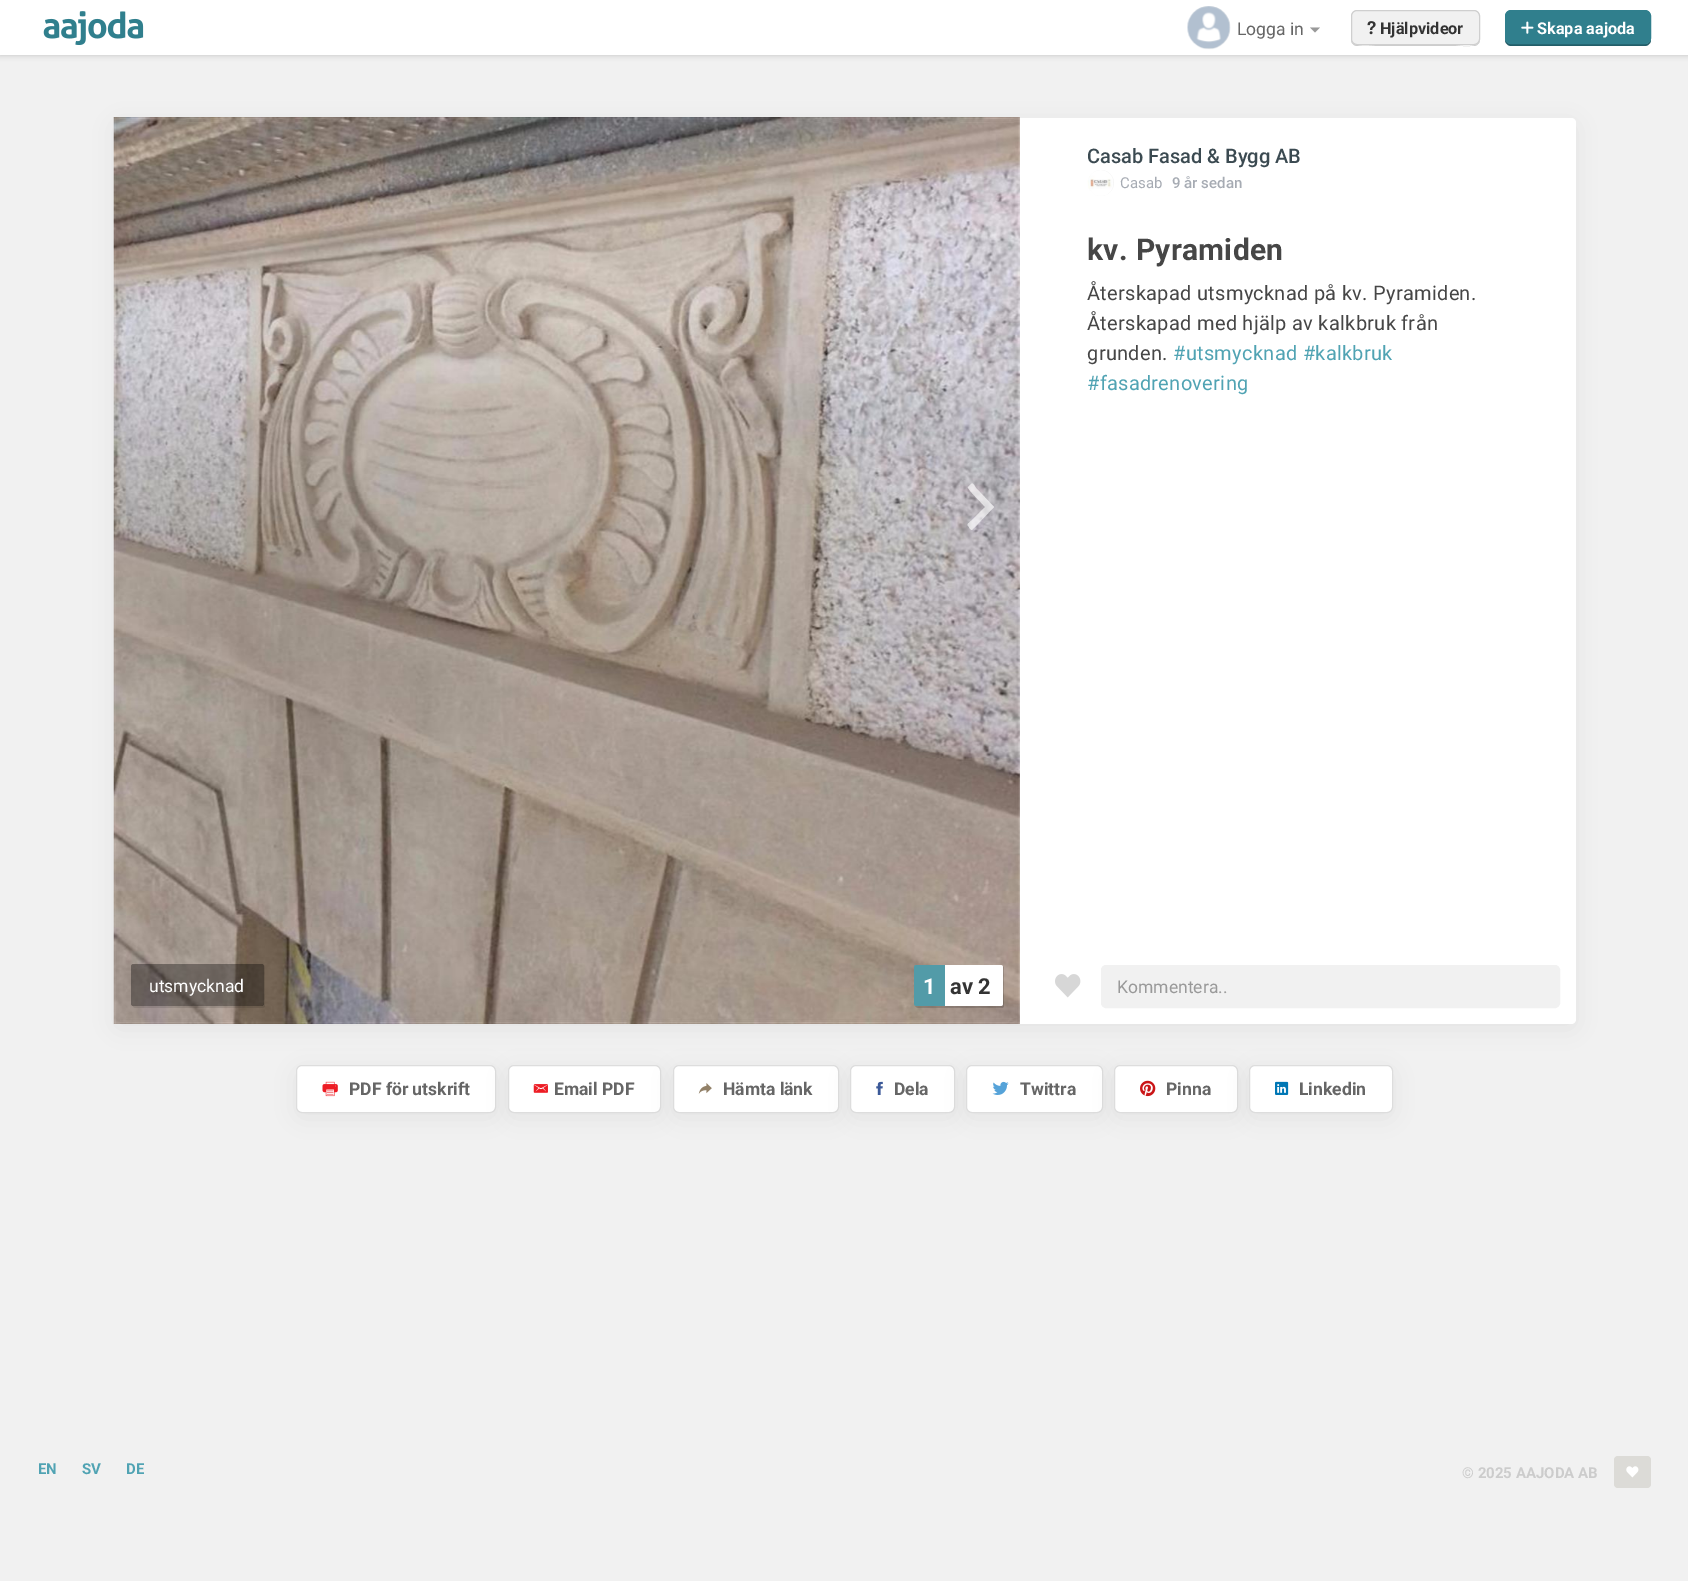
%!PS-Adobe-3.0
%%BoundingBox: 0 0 1688 1581
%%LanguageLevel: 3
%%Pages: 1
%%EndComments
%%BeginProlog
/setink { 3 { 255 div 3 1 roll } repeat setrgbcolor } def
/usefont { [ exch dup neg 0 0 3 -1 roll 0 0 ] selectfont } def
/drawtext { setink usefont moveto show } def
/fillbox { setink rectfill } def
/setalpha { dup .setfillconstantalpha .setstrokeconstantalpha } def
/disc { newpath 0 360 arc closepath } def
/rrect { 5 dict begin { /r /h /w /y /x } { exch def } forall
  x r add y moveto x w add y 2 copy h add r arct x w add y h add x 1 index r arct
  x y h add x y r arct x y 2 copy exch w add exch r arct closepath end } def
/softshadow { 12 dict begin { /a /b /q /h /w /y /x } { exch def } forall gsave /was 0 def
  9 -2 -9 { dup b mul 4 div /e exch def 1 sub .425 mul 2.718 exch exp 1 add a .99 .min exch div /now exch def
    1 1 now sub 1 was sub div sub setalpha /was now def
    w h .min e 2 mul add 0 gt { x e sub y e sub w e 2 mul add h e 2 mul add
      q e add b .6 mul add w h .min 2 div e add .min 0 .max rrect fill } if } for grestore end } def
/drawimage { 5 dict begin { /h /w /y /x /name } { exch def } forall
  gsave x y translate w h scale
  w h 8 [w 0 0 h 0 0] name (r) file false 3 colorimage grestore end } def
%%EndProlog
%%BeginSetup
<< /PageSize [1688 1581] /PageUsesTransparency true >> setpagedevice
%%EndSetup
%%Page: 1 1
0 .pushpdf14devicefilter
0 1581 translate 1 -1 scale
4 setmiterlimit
0 0 1688 1581 241 241 241 fillbox
0 0 0 setink
0 0 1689 55 0 3 0.2 softshadow
0 0 1688 55 255 255 255 fillbox
(assets/img1.rgb) 43 11 101 34 drawimage
238 238 238 setink
1188 6 42 43 21 rrect fill
(assets/img2.rgb) 1187 6 44 44 drawimage
(Logga in) 1237 35 /Roboto-Regular 17.5 102 102 102 drawtext
153 153 153 setink
1310 27.5 moveto 1320 27.5 lineto 1315 32.5 lineto closepath fill
204 204 204 setink
1351 15 moveto 1351 17 lineto 1351 40 lineto 1351 43 1354 46 1357 46 curveto 1474 46 lineto 1477 46 1480 43 1480 40 curveto 1480 39 lineto 1480 50 1456 45 1454 45 curveto 1377 45 lineto 1375 45 1353 49 1351 40 curveto closepath fill
241 241 241 setink
1351.5 10.5 128 34 5.5 rrect gsave fill grestore
207 207 207 setink
stroke
(assets/img3.rgb) 1367 21 9 14 drawimage
(Hjälpvideor) 1380 34 /Roboto-Bold 16.25 51 51 51 drawtext
35 94 105 setink
1505 38 moveto 1505 40 lineto 1505 43 1508 46 1511 46 curveto 1645 46 lineto 1648 46 1651 43 1651 40 curveto 1651 39 lineto 1650 42 1648 44 1645 44 curveto 1511 44 lineto 1508 44 1505 41 1505 38 curveto closepath fill
48 127 141 setink
1505.5 10.5 145 33 5.5 rrect gsave fill grestore
stroke
(assets/img4.rgb) 1521 21 13 13 drawimage
(Skapa aajoda) 1537 34 /Roboto-Bold 16.25 255 255 255 drawtext
0 0 0 setink
296 1070 200 48 6 12.5 0.06 softshadow
255 255 255 setink
296.5 1065.5 199 47 5.5 rrect gsave fill grestore
221 221 221 setink
stroke
0 0 0 setink
508 1070 153 48 6 12.5 0.06 softshadow
255 255 255 setink
508.5 1065.5 152 47 5.5 rrect gsave fill grestore
221 221 221 setink
stroke
0 0 0 setink
673 1070 166 48 6 12.5 0.06 softshadow
255 255 255 setink
673.5 1065.5 165 47 5.5 rrect gsave fill grestore
221 221 221 setink
stroke
0 0 0 setink
850 1070 105 48 6 12.5 0.06 softshadow
255 255 255 setink
850.5 1065.5 104 47 5.5 rrect gsave fill grestore
221 221 221 setink
stroke
0 0 0 setink
966 1070 137 48 6 12.5 0.06 softshadow
255 255 255 setink
966.5 1065.5 136 47 5.5 rrect gsave fill grestore
221 221 221 setink
stroke
0 0 0 setink
1114 1070 124 48 6 12.5 0.06 softshadow
255 255 255 setink
1114.5 1065.5 123 47 5.5 rrect gsave fill grestore
221 221 221 setink
stroke
0 0 0 setink
1249 1070 144 48 6 12.5 0.06 softshadow
255 255 255 setink
1249.5 1065.5 143 47 5.5 rrect gsave fill grestore
221 221 221 setink
stroke
0 0 0 setink
114 123 1462 906 5 12.5 0.06 softshadow
255 255 255 setink
114 118 moveto 1571 118 lineto 1574 118 1576 120 1576 123 curveto 1576 1019 lineto 1576 1022 1574 1024 1571 1024 curveto 114 1024 lineto closepath fill
(assets/img5.rgb) 113 117 907 907 drawimage
0.65 setalpha
985 507 moveto 982 503 967 489 968 487 curveto 970 485 lineto 973 482 973 484 976 488 curveto 994 507 lineto 972 530 lineto 971 530 969 528 969 527 curveto 966 524 968 524 971 521 curveto closepath fill
0.1 setalpha
0 0 0 setink
133 1006 moveto 133 1007 134 1008 136 1008 curveto 262 1008 lineto 264 1008 265 1007 265 1006 curveto 265 968 lineto 265 966 264 966 264 965 curveto 264 998 lineto 264 999 265 1006 261 1006 curveto closepath fill
0.35 setalpha
131 964 133 42 2.5 rrect fill
1 setalpha
(utsmycknad) 149 992 /Roboto-Regular 17.5 255 255 255 drawtext
0.15 setalpha
0 0 0 setink
915 1006 moveto 916 1007 917 1008 919 1008 curveto 1002 1008 lineto 1003 1008 1004 1007 1004 1006 curveto 1004 968 lineto 1004 967 1003 966 1002 966 curveto 1002 968 lineto 1002 1004 lineto 1002 1005 1001 1006 1000 1006 curveto 918 1006 lineto closepath fill
1 setalpha
255 255 255 setink
918 965 moveto 1000.5 965 lineto 1002 965 1003 966 1003 967.5 curveto 1003 1003.5 lineto 1003 1005 1002 1006 1000.5 1006 curveto 918 1006 lineto 916 1006 914 1004 914 1002 curveto 914 969 lineto 914 967 916 965 918 965 curveto closepath fill
82 155 168 setink
916.5 965 moveto 945 965 lineto 945 1006 lineto 916.5 1006 lineto 915 1006 914 1005 914 1003.5 curveto 914 967.5 lineto 914 966 915 965 916.5 965 curveto closepath fill
(1) 923 994 /Roboto-Bold 22 255 255 255 drawtext
(av 2) 950 994 /Roboto-Bold 22 51 51 51 drawtext
(Casab Fasad & Bygg AB) 1087 163 /Roboto-Medium 20 59 74 81 drawtext
238 238 238 setink
1101 183 13 disc fill
(assets/img6.rgb) 1087 170 27 26 drawimage
(Casab) 1120 188 /Roboto-Regular 15 166 171 179 drawtext
(9 år sedan) 1172 188 /Roboto-Medium 15 166 171 179 drawtext
/Roboto-Bold 30 usefont
70 70 70 setink
1087 260 moveto 0.3 0 (kv. Pyramiden) ashow
/Roboto-Regular 20 usefont
1087 300 moveto 0.3 0 (Återskapad utsmycknad på kv. Pyramiden.) ashow
1087 330 moveto 0.3 0 (Återskapad med hjälp av kalkbruk från) ashow
1087 360 moveto 0.3 0 (grunden.) ashow
80 163 179 setink
1173 360 moveto 0.3 0 (#utsmycknad #kalkbruk) ashow
1087 390 moveto 0.3 0 (#fasadrenovering) ashow
(assets/img7.rgb) 1055 974 26 24 drawimage
241 241 241 setink
1101.5 965.5 458 42 4.5 rrect gsave fill grestore
stroke
(Kommentera..) 1117 993 /Roboto-Regular 17.5 153 153 153 drawtext
(assets/img8.rgb) 322 1081 16 16 drawimage
(PDF för utskrift) 349 1095 /Roboto-Bold 17.5 102 102 102 drawtext
(assets/img9.rgb) 533 1084 15 9 drawimage
(Email PDF) 554 1095 /Roboto-Bold 17.5 102 102 102 drawtext
(assets/img10.rgb) 698 1083 14 11 drawimage
(Hämta länk) 723 1095 /Roboto-Bold 17.5 102 102 102 drawtext
(assets/img11.rgb) 876 1081 7 14 drawimage
(Dela) 894 1095 /Roboto-Bold 17.5 102 102 102 drawtext
(assets/img12.rgb) 992 1081 17 14 drawimage
(Twittra) 1020 1095 /Roboto-Bold 17.5 102 102 102 drawtext
(assets/img13.rgb) 1140 1080 16 17 drawimage
(Pinna) 1166 1095 /Roboto-Bold 17.5 102 102 102 drawtext
(assets/img14.rgb) 1275 1081 14 14 drawimage
(Linkedin) 1299 1095 /Roboto-Bold 17.5 102 102 102 drawtext
(EN) 38 1474 /Roboto-Bold 15 80 163 179 drawtext
(SV) 82 1474 /Roboto-Bold 15 80 163 179 drawtext
(DE) 126 1474 /Roboto-Bold 15 80 163 179 drawtext
(© 2025 AAJODA AB) 1462 1478 /Roboto-Bold 15 204 204 204 drawtext
220 219 215 setink
1614 1456 37 32 4 rrect fill
(assets/img15.rgb) 1626 1466 13 12 drawimage
.poppdf14devicefilter showpage
%%EOF
